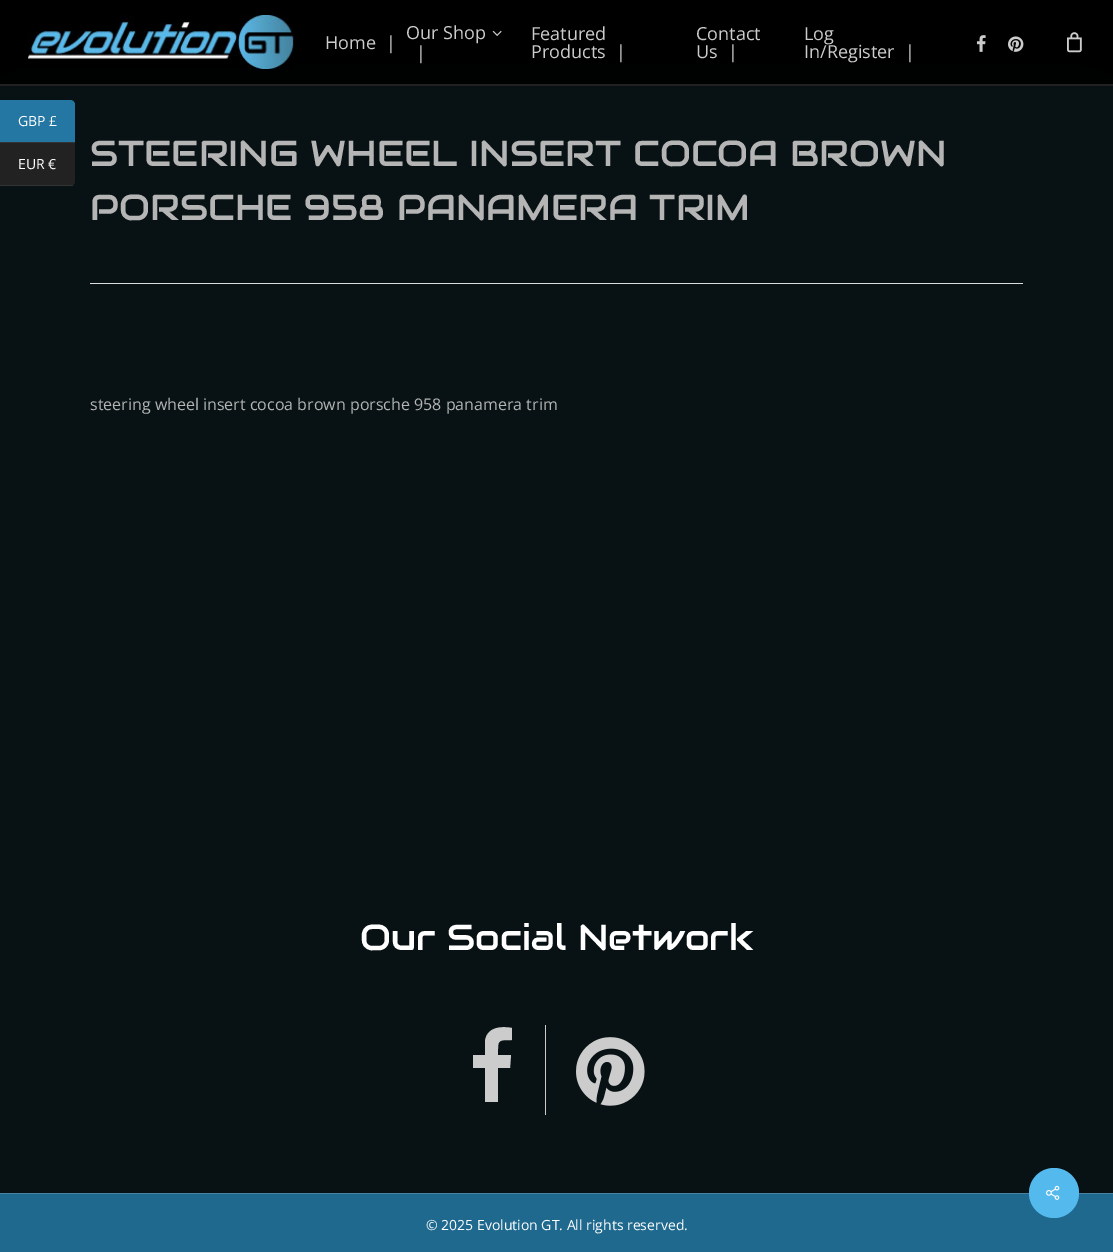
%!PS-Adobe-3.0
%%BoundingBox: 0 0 1113 1252
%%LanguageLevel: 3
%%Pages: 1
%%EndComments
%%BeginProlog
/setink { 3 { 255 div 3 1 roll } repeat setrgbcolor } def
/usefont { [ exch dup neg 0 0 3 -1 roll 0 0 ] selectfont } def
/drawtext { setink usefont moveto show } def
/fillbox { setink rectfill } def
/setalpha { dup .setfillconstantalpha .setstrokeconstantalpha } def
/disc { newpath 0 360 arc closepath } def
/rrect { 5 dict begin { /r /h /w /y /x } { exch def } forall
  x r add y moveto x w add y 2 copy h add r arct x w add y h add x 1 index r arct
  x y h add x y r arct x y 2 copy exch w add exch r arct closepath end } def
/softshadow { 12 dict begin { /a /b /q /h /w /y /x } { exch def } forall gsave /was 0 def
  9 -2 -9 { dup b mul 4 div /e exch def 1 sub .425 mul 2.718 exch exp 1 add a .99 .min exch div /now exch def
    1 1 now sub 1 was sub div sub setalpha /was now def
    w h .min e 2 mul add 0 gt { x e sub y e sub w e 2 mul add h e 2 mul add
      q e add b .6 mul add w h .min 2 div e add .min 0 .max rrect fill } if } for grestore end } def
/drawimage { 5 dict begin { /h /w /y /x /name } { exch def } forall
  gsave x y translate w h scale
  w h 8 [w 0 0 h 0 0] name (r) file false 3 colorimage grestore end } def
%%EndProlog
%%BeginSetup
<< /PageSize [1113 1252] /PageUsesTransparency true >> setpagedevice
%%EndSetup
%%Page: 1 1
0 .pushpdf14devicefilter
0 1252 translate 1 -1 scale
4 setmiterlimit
0 0 1113 1252 8 18 20 fillbox
0 0 1113 84 0 0 0 fillbox
0 85 1113 1 34 34 34 fillbox
204 204 204 setink
512 1028 moveto 512 1040 lineto 497 1040 498 1040 498 1055 curveto 511 1055 lineto 510 1068 lineto 498 1068 lineto 498 1102 lineto 485 1102 lineto 485 1068 lineto 473 1068 lineto 473 1055 lineto 485 1055 lineto 485 1041 lineto 487 1027 501 1026 512 1028 curveto closepath fill
545 1025 1 90 204 204 204 fillbox
(assets/img6.rgb) 576 1037 69 69 drawimage
gsave
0 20 moveto 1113 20 lineto 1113 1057 lineto 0 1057 lineto closepath 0 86 moveto 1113 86 lineto 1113 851 lineto 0 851 lineto closepath eoclip newpath
8 18 20 setink
30 186 1053 705 0 55 1 softshadow
grestore
35 119 162 setink
0 100 moveto 70 100 lineto 73 100 75 102 75 105 curveto 75 143 lineto 0 143 lineto closepath fill
0 142 75 1 51 51 51 fillbox
(GBP £) 18 126 /OpenSans-Regular 14 255 255 255 drawtext
34 34 34 setink
0 143 moveto 75 143 lineto 75 181 lineto 75 184 73 186 70 186 curveto 0 186 lineto closepath fill
0 185 73 1 51 51 51 fillbox
(EUR €) 18 169 /OpenSans-Regular 14 255 255 255 drawtext
0 84 1113 1 34 34 34 fillbox
(assets/img1.rgb) 28 15 266 54 drawimage
(Home) 325 49 /OpenSans-Regular 18 204 204 204 drawtext
(|) 386 49 /OpenSans-Regular 18 204 204 204 drawtext
(Our Shop) 406 39 /OpenSans-Regular 18 204 204 204 drawtext
(assets/img2.rgb) 492 30 10 6 drawimage
(|) 416 59 /OpenSans-Regular 18 204 204 204 drawtext
(Featured) 531 40 /OpenSans-Regular 18 204 204 204 drawtext
(Products) 531 58 /OpenSans-Regular 18 204 204 204 drawtext
(|) 616 58 /OpenSans-Regular 18 204 204 204 drawtext
(Contact) 696 40 /OpenSans-Regular 18 204 204 204 drawtext
(Us) 696 58 /OpenSans-Regular 18 204 204 204 drawtext
(|) 728 58 /OpenSans-Regular 18 204 204 204 drawtext
(Log) 804 40 /OpenSans-Regular 18 204 204 204 drawtext
(In/Register) 804 58 /OpenSans-Regular 18 204 204 204 drawtext
(|) 905 58 /OpenSans-Regular 18 204 204 204 drawtext
(assets/img3.rgb) 976 35 10 17 drawimage
(assets/img4.rgb) 1008 36 16 16 drawimage
(assets/img5.rgb) 1067 32 15 21 drawimage
90 283 933 1 221 221 221 fillbox
(STEERING WHEEL INSERT COCOA BROWN) 90 166 /Audiowide-Regular 36 181 181 181 drawtext
(PORSCHE 958 PANAMERA TRIM) 90 220 /Audiowide-Regular 36 181 181 181 drawtext
(steering wheel insert cocoa brown porsche 958 panamera trim) 90 410 /OpenSans-Regular 16 181 181 181 drawtext
(Our Social Network) 360 950 /Audiowide-Regular 36 255 255 255 drawtext
0 1194 1113 58 31 105 143 fillbox
0 1193 1113 1 71 132 163 fillbox
(© 2025 Evolution GT. All rights reserved.) 426 1230 /OpenSans-Regular 14 255 255 255 drawtext
84 185 236 setink
1054 1193 25 disc fill
(assets/img7.rgb) 1046 1185 14 15 drawimage
.poppdf14devicefilter showpage
%%EOF
